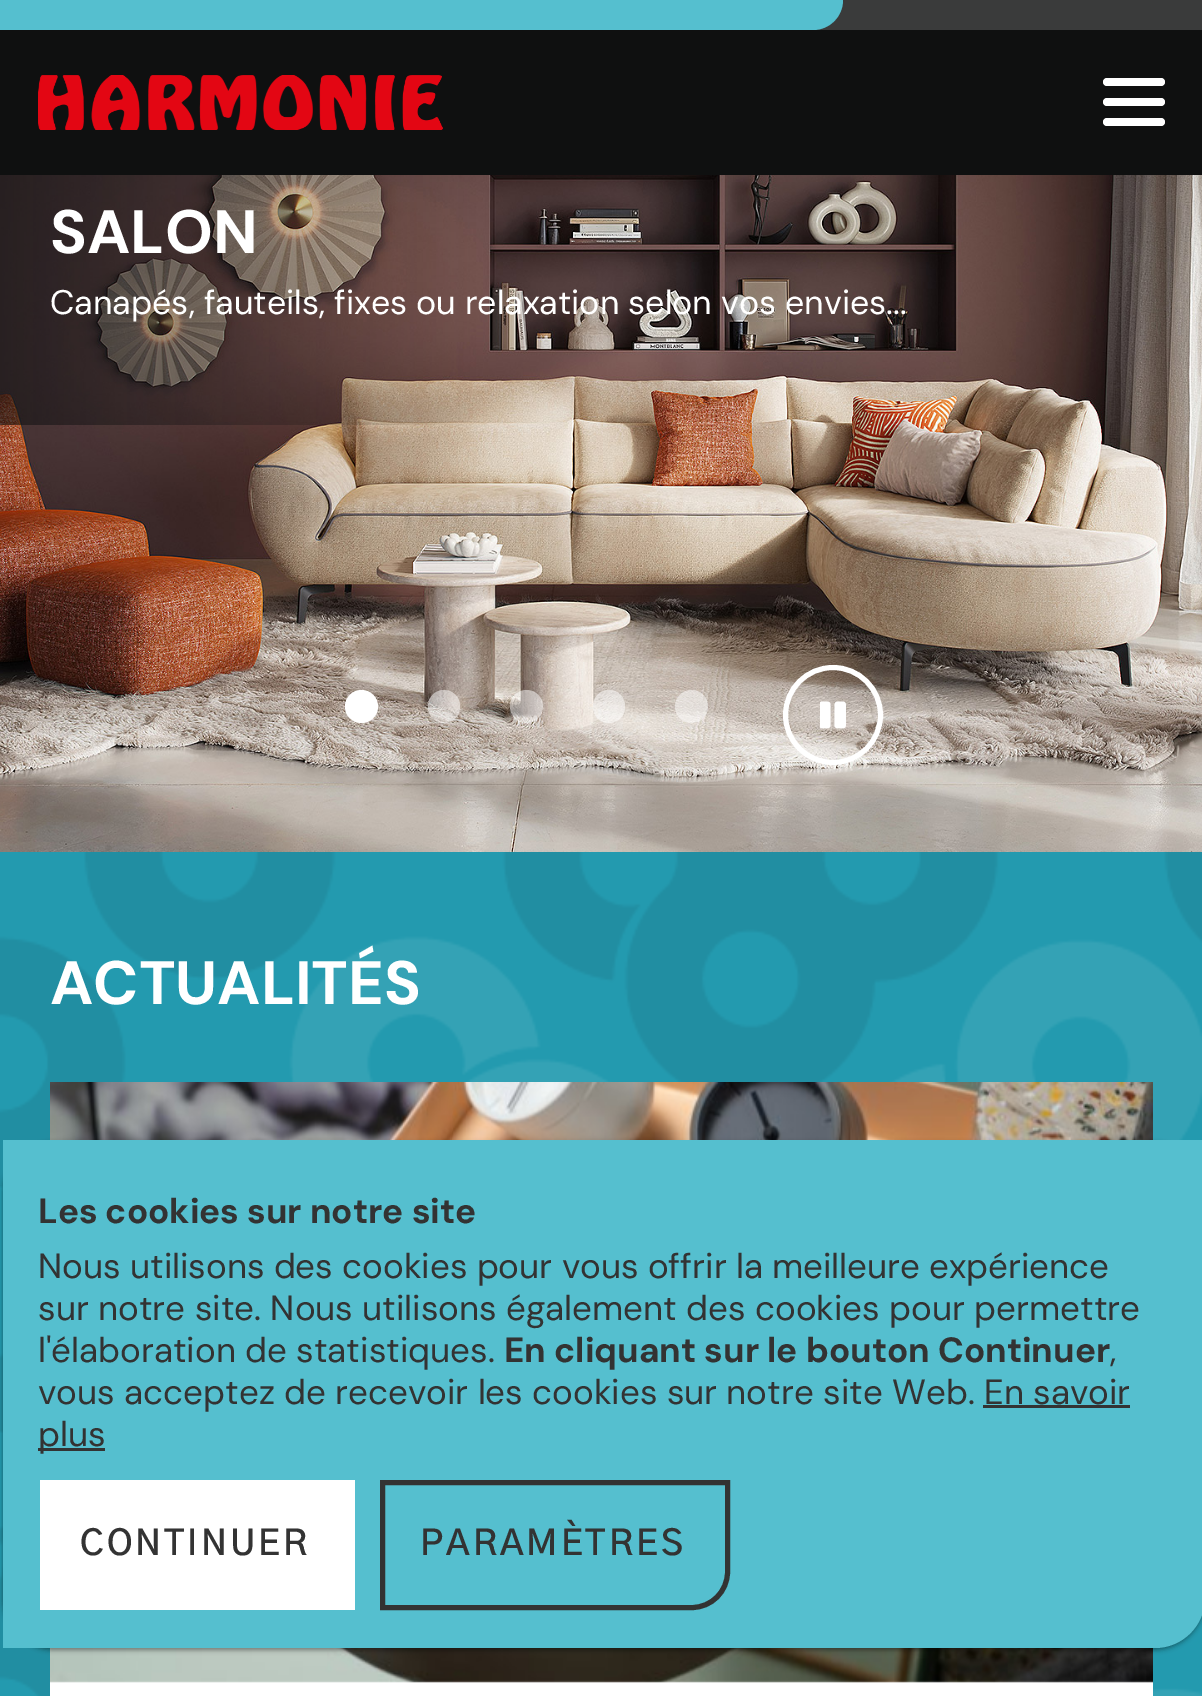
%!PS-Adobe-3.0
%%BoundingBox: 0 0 1202 1696
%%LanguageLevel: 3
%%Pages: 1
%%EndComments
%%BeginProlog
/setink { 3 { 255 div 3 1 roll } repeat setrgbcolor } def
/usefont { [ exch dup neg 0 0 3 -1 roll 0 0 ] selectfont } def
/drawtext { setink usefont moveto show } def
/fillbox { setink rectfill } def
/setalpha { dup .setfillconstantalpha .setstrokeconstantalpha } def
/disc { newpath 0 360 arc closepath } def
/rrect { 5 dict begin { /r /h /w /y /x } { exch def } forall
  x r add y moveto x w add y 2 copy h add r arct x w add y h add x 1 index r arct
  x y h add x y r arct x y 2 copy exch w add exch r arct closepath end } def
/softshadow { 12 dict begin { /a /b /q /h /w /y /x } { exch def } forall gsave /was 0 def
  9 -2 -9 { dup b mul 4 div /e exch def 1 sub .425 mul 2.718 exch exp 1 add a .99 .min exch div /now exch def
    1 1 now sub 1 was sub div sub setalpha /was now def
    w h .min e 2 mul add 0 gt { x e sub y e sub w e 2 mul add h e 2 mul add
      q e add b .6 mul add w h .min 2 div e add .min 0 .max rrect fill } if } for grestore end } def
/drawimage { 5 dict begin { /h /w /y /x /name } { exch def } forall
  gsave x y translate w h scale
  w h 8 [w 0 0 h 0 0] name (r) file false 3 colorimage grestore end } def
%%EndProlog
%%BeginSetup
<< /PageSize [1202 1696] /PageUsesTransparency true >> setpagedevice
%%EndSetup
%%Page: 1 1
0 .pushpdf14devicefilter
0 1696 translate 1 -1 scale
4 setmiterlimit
0 0 1202 1696 255 255 255 fillbox
813 0 389 30 58 59 59 fillbox
85 191 207 setink
0 0 moveto 843 0 lineto 843 16.5 829.5 30 813 30 curveto 0 30 lineto closepath fill
0 30 1202 145 15 16 16 fillbox
(assets/img1.rgb) 38 75 405 55 drawimage
255 255 255 setink
1103 98 62 8 4 rrect fill
1103 78 62 8 4 rrect fill
1103 118 62 8 4 rrect fill
(assets/img2.rgb) 0 175 1202 677 drawimage
(SALON) 50 253 /DMSans-Bold 61.25 255 255 255 drawtext
(Canapés, fauteils, fixes ou relaxation selon vos envies...) 50 314 /DMSans-Regular 34 255 255 255 drawtext
361.5 706.5 16.5 disc fill
0.5 setalpha
428 690 32 33 16 rrect fill
526.5 706.5 16.5 disc fill
593 690 32 33 16 rrect fill
691.5 706.5 16.5 disc fill
1 setalpha
5 setlinewidth
833 715 47.5 disc stroke
(assets/img3.rgb) 820 701 26 28 drawimage
(assets/img4.rgb) 0 852 1202 844 drawimage
(ACTUALITÉS) 50 1004 /DMSans-Bold 61.25 255 255 255 drawtext
50 1680 1103 16 255 255 255 fillbox
(assets/img5.rgb) 50 1082 1103 601 drawimage
0 0 0 setink
3 1143 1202 507 50 2.5 0.4 softshadow
85 191 207 setink
3 1140 moveto 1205 1140 lineto 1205 1598 lineto 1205 1625.5 1182.5 1648 1155 1648 curveto 3 1648 lineto closepath fill
(Les cookies sur notre site) 38 1223 /DMSans-Bold 35 51 51 51 drawtext
(Nous utilisons des cookies pour vous offrir la meilleure expérience) 38 1278 /DMSans-Regular 35 51 51 51 drawtext
(sur notre site. Nous utilisons également des cookies pour permettre) 38 1320 /DMSans-Regular 35 51 51 51 drawtext
(l'élaboration de statistiques.) 38 1362 /DMSans-Regular 35 51 51 51 drawtext
(En cliquant sur le bouton Continuer) 504 1362 /DMSans-Bold 35 51 51 51 drawtext
(,) 1110 1362 /DMSans-Regular 35 51 51 51 drawtext
(vous acceptez de recevoir les cookies sur notre site Web. En savoir) 38 1404 /DMSans-Regular 35 51 51 51 drawtext
38 1448 67 3 51 51 51 fillbox
(plus) 38 1446 /DMSans-Regular 35 51 51 51 drawtext
983 1405 147 3 51 51 51 fillbox
40 1480 315 130 255 255 255 fillbox
/GothicA1-SemiBold 35 usefont
51 51 51 setink
80 1555 moveto 3 0 (CONTINUER) ashow
382.5 1482.5 moveto 727.5 1482.5 lineto 727.5 1572 lineto 727.5 1591.5 711.5 1607.5 692 1607.5 curveto 382.5 1607.5 lineto closepath stroke
420 1555 moveto 3 0 (PARAMÈTRES) ashow
.poppdf14devicefilter showpage
%%EOF
